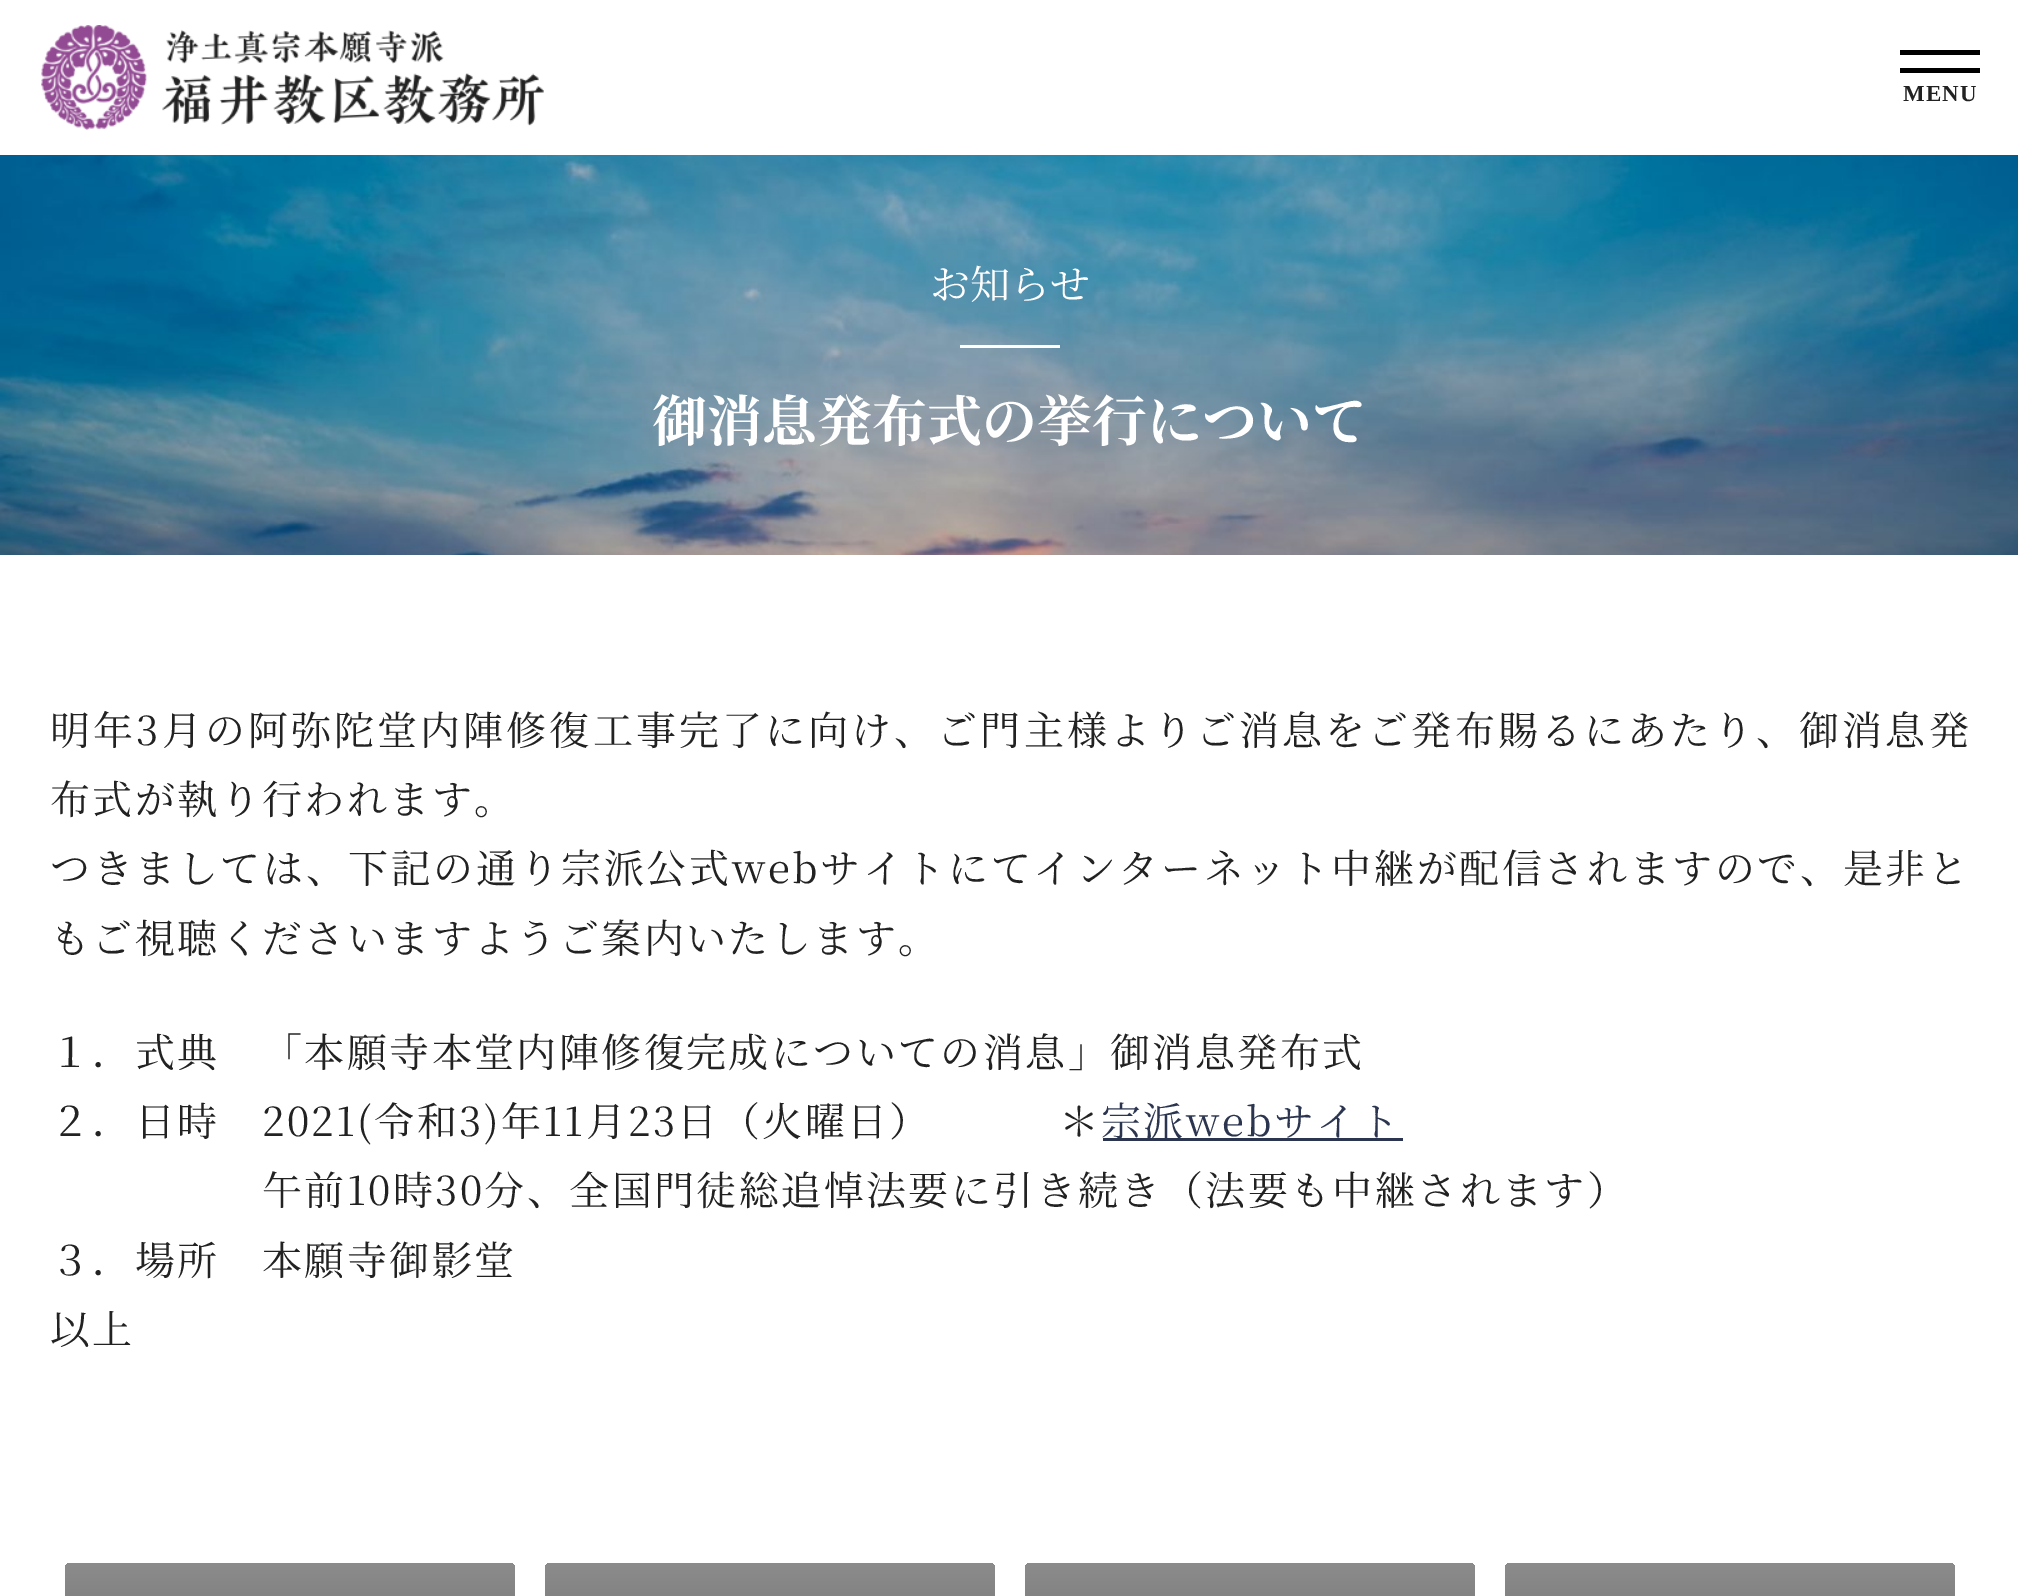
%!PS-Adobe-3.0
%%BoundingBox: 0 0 2018 1596
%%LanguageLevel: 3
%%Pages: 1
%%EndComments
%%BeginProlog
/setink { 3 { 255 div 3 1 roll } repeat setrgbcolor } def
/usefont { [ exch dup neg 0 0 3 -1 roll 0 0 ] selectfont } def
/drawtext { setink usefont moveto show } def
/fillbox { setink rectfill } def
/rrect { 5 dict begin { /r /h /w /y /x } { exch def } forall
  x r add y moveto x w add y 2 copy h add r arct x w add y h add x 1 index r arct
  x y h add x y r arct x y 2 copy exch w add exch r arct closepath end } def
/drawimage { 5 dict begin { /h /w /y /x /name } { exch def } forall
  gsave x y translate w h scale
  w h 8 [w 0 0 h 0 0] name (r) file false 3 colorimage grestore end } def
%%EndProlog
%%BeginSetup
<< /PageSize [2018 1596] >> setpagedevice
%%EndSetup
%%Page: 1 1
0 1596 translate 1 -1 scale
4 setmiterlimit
0 0 2018 1596 255 255 255 fillbox
(assets/img1.rgb) 41 25 503 105 drawimage
1900 50 80 5 0 0 0 fillbox
1900 68 80 5 0 0 0 fillbox
/LiberationSerif-Bold 23 usefont
34 34 34 setink
1903 101 moveto 1 0 (MENU) ashow
(assets/img2.rgb) 0 155 2018 400 drawimage
(お知らせ) 930 299 /NotoSerifJP-Regular 40 255 255 255 drawtext
960 345 100 3 255 255 255 fillbox
(御消息発布式の挙行について) 652 441 /NotoSerifJP-Bold 55 255 255 255 drawtext
/NotoSerifJP-Regular 40 usefont
34 34 34 setink
50 745 moveto 3.1 0 (明年3月の阿弥陀堂内陣修復工事完了に向け、ご門主様よりご消息をご発布賜るにあたり、御消息発) ashow
50 814 moveto 2.4 0 (布式が執り行われます。) ashow
50 883 moveto 2.6 0 (つきましては、下記の通り宗派公式webサイトにてインターネット中継が配信されますので、是非と) ashow
50 953 moveto 2.4 0 (もご視聴くださいますようご案内いたします。) ashow
50 1067 moveto 2.4 0 (１．式典　「本願寺本堂内陣修復完成についての消息」御消息発布式) ashow
50 1136 moveto 2.4 0 (２．日時　2021\(令和3\)年11月23日（火曜日）　　　＊) ashow
1103 1138 300 3 43 53 80 fillbox
1101 1136 moveto 2.4 0 (宗派webサイト) ashow
34 34 34 setink
262 1205 moveto 2.4 0 (午前10時30分、全国門徒総追悼法要に引き続き（法要も中継されます）) ashow
50 1275 moveto 2.4 0 (３．場所　本願寺御影堂) ashow
50 1344 moveto 2.4 0 (以上) ashow
gsave 65 1563 450 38 5 rrect clip newpath
<< /ShadingType 2 /ColorSpace /DeviceRGB /Coords [290 1563 290 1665] /Extend [true true] /Function << /FunctionType 2 /Domain [0 1] /C0 [0.549 0.549 0.549] /C1 [0.435 0.435 0.435] /N 1 >> >> shfill grestore
gsave 545 1563 450 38 5 rrect clip newpath
<< /ShadingType 2 /ColorSpace /DeviceRGB /Coords [770 1563 770 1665] /Extend [true true] /Function << /FunctionType 2 /Domain [0 1] /C0 [0.549 0.549 0.549] /C1 [0.435 0.435 0.435] /N 1 >> >> shfill grestore
gsave 1025 1563 450 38 5 rrect clip newpath
<< /ShadingType 2 /ColorSpace /DeviceRGB /Coords [1250 1563 1250 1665] /Extend [true true] /Function << /FunctionType 2 /Domain [0 1] /C0 [0.549 0.549 0.549] /C1 [0.435 0.435 0.435] /N 1 >> >> shfill grestore
gsave 1505 1563 450 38 5 rrect clip newpath
<< /ShadingType 2 /ColorSpace /DeviceRGB /Coords [1730 1563 1730 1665] /Extend [true true] /Function << /FunctionType 2 /Domain [0 1] /C0 [0.549 0.549 0.549] /C1 [0.435 0.435 0.435] /N 1 >> >> shfill grestore
showpage
%%EOF
